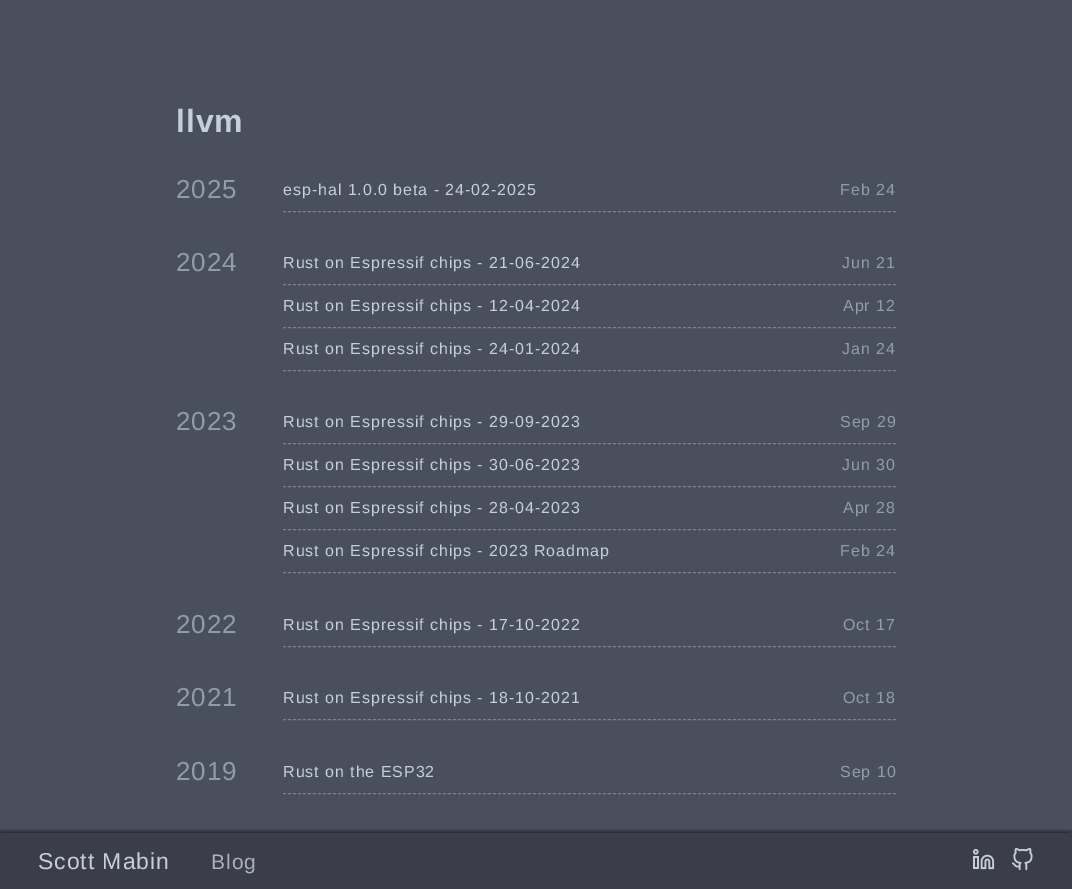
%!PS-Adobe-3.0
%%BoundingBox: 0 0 1072 889
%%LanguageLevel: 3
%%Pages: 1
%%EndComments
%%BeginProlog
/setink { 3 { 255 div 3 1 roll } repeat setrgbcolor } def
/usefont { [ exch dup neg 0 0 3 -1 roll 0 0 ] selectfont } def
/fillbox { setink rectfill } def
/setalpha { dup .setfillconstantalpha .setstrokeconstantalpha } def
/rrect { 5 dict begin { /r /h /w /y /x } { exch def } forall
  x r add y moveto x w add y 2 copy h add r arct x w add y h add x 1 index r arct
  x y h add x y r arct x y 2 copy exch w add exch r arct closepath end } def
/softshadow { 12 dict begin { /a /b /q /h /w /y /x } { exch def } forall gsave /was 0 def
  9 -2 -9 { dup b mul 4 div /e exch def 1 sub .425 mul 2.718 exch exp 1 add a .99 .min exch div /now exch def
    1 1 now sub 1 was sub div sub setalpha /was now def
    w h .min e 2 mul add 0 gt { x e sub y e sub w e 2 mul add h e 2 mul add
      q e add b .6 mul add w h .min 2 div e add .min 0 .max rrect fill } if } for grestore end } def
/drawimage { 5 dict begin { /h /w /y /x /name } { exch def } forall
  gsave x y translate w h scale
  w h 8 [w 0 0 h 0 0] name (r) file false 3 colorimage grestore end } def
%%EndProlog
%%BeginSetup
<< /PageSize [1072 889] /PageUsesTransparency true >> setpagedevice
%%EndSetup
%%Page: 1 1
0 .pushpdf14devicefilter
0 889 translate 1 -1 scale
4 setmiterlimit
0 0 1072 889 73 79 92 fillbox
/LiberationSans-Bold 32 usefont
198 205 219 setink
176 132 moveto 0.95 0 (llvm) ashow
/LiberationSans-Regular 26 usefont
148 155 168 setink
176 198 moveto 0.95 0 (2025) ashow
125 130 138 setink
[3 2] 0 setdash
283 211.5 moveto 896 211.5 lineto stroke
/LiberationSans-Regular 16 usefont
198 205 219 setink
283 195 moveto 0.95 0 (esp-hal 1.0.0 beta - 24-02-2025) ashow
148 155 168 setink
840 195 moveto 0.95 0 (Feb 24) ashow
/LiberationSans-Regular 26 usefont
176 271 moveto 0.95 0 (2024) ashow
125 130 138 setink
283 284.5 moveto 896 284.5 lineto stroke
/LiberationSans-Regular 16 usefont
198 205 219 setink
283 268 moveto 0.95 0 (Rust on Espressif chips - 21-06-2024) ashow
148 155 168 setink
842 268 moveto 0.95 0 (Jun 21) ashow
125 130 138 setink
283 327.5 moveto 896 327.5 lineto stroke
198 205 219 setink
283 311 moveto 0.95 0 (Rust on Espressif chips - 12-04-2024) ashow
148 155 168 setink
843 311 moveto 0.95 0 (Apr 12) ashow
125 130 138 setink
283 370.5 moveto 896 370.5 lineto stroke
198 205 219 setink
283 354 moveto 0.95 0 (Rust on Espressif chips - 24-01-2024) ashow
148 155 168 setink
842 354 moveto 0.95 0 (Jan 24) ashow
/LiberationSans-Regular 26 usefont
176 430 moveto 0.95 0 (2023) ashow
125 130 138 setink
283 443.5 moveto 896 443.5 lineto stroke
/LiberationSans-Regular 16 usefont
198 205 219 setink
283 427 moveto 0.95 0 (Rust on Espressif chips - 29-09-2023) ashow
148 155 168 setink
840 427 moveto 0.95 0 (Sep 29) ashow
125 130 138 setink
283 486.5 moveto 896 486.5 lineto stroke
198 205 219 setink
283 470 moveto 0.95 0 (Rust on Espressif chips - 30-06-2023) ashow
148 155 168 setink
842 470 moveto 0.95 0 (Jun 30) ashow
125 130 138 setink
283 529.5 moveto 896 529.5 lineto stroke
198 205 219 setink
283 513 moveto 0.95 0 (Rust on Espressif chips - 28-04-2023) ashow
148 155 168 setink
843 513 moveto 0.95 0 (Apr 28) ashow
125 130 138 setink
283 572.5 moveto 896 572.5 lineto stroke
198 205 219 setink
283 556 moveto 0.95 0 (Rust on Espressif chips - 2023 Roadmap) ashow
148 155 168 setink
840 556 moveto 0.95 0 (Feb 24) ashow
/LiberationSans-Regular 26 usefont
176 633 moveto 0.95 0 (2022) ashow
125 130 138 setink
283 646.5 moveto 896 646.5 lineto stroke
/LiberationSans-Regular 16 usefont
198 205 219 setink
283 630 moveto 0.95 0 (Rust on Espressif chips - 17-10-2022) ashow
148 155 168 setink
843 630 moveto 0.95 0 (Oct 17) ashow
/LiberationSans-Regular 26 usefont
176 706 moveto 0.95 0 (2021) ashow
125 130 138 setink
283 719.5 moveto 896 719.5 lineto stroke
/LiberationSans-Regular 16 usefont
198 205 219 setink
283 703 moveto 0.95 0 (Rust on Espressif chips - 18-10-2021) ashow
148 155 168 setink
843 703 moveto 0.95 0 (Oct 18) ashow
/LiberationSans-Regular 26 usefont
176 780 moveto 0.95 0 (2019) ashow
125 130 138 setink
283 793.5 moveto 896 793.5 lineto stroke
/LiberationSans-Regular 16 usefont
198 205 219 setink
283 777 moveto 0.95 0 (Rust on the ESP32) ashow
148 155 168 setink
840 777 moveto 0.95 0 (Sep 10) ashow
0 0 0 setink
-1 831 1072 56 0 1.5 0.45 softshadow
0 833 1072 56 59 62 72 fillbox
/LiberationSans-Regular 23 usefont
198 205 219 setink
38 869 moveto 0.95 0 (Scott Mabin) ashow
/LiberationSans-Regular 21 usefont
170 176 190 setink
211 869 moveto 0.95 0 (Blog) ashow
(assets/img1.rgb) 973 849 22 21 drawimage
(assets/img2.rgb) 1012 848 21 23 drawimage
.poppdf14devicefilter showpage
%%EOF
